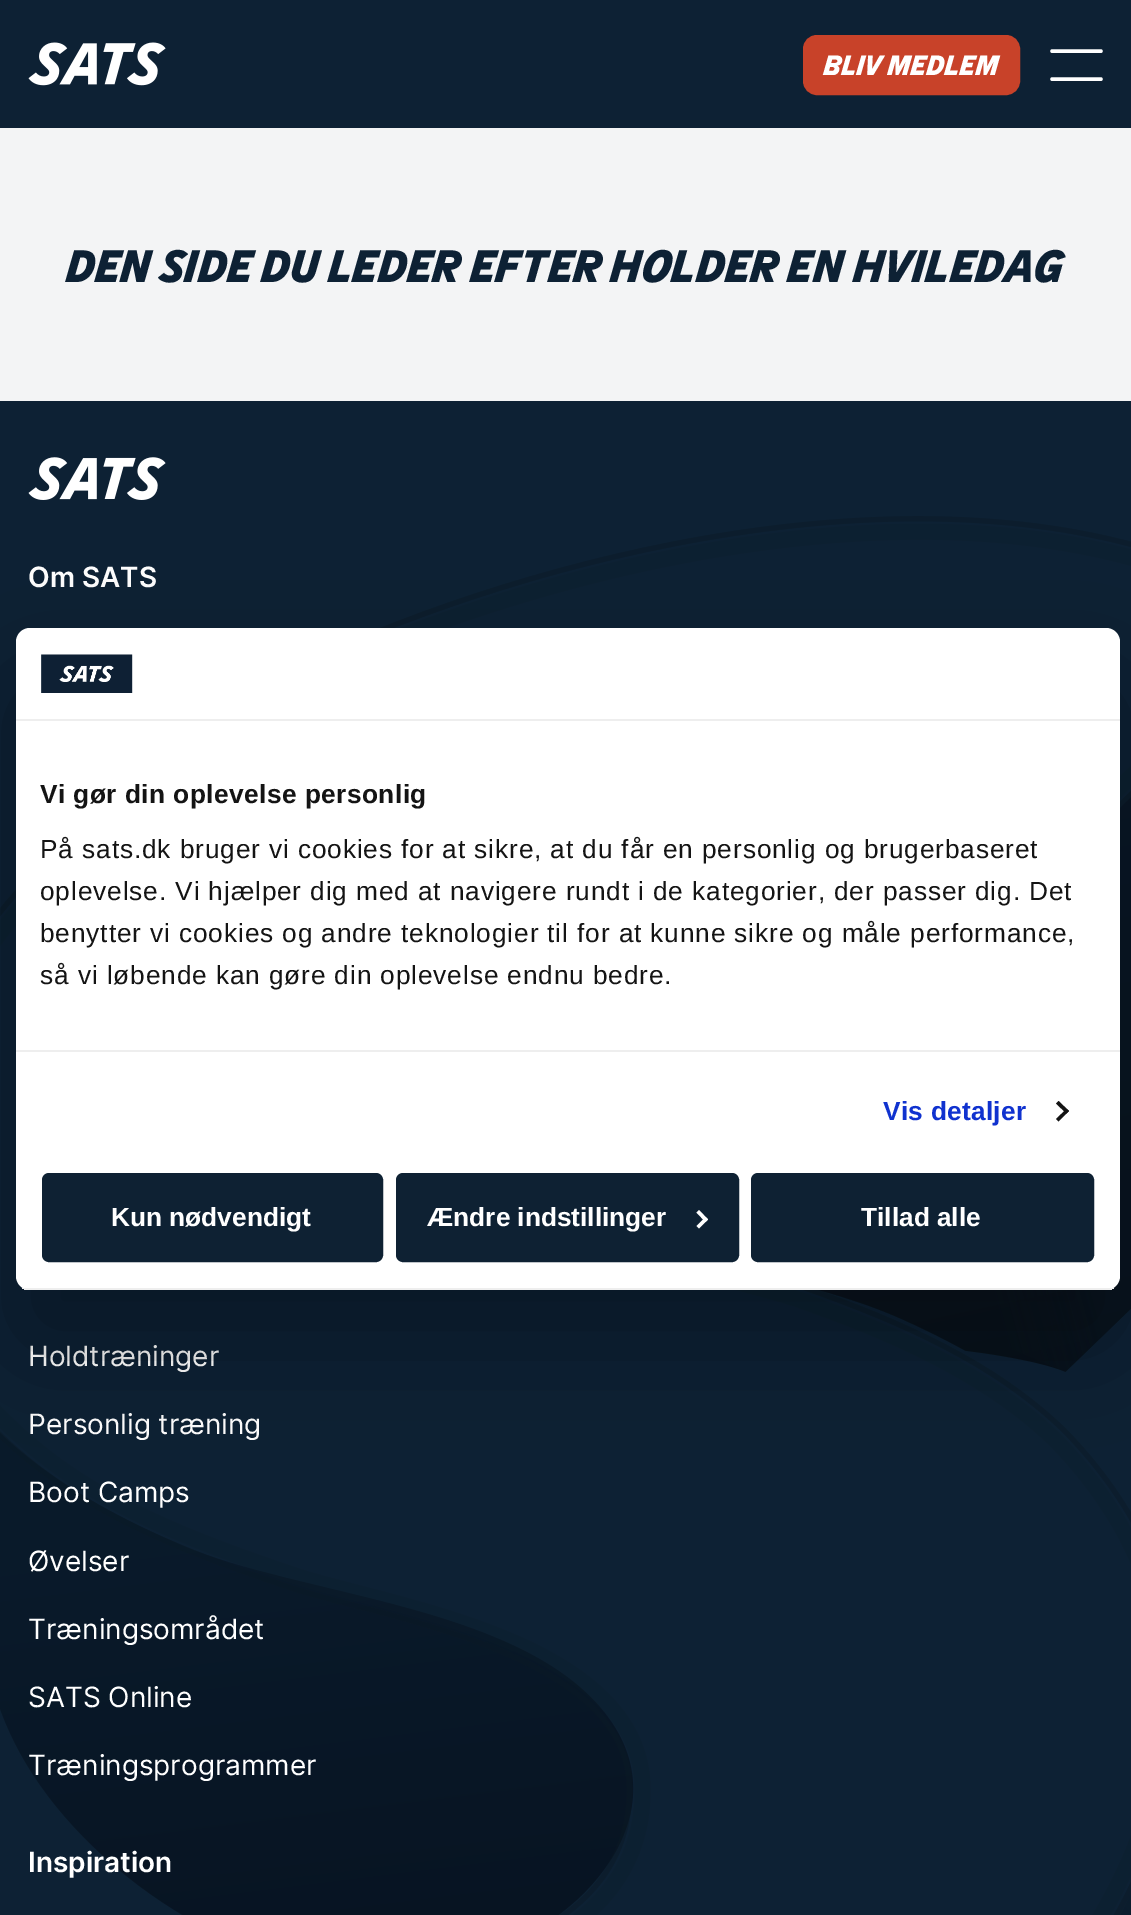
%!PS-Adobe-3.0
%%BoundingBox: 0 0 1131 1915
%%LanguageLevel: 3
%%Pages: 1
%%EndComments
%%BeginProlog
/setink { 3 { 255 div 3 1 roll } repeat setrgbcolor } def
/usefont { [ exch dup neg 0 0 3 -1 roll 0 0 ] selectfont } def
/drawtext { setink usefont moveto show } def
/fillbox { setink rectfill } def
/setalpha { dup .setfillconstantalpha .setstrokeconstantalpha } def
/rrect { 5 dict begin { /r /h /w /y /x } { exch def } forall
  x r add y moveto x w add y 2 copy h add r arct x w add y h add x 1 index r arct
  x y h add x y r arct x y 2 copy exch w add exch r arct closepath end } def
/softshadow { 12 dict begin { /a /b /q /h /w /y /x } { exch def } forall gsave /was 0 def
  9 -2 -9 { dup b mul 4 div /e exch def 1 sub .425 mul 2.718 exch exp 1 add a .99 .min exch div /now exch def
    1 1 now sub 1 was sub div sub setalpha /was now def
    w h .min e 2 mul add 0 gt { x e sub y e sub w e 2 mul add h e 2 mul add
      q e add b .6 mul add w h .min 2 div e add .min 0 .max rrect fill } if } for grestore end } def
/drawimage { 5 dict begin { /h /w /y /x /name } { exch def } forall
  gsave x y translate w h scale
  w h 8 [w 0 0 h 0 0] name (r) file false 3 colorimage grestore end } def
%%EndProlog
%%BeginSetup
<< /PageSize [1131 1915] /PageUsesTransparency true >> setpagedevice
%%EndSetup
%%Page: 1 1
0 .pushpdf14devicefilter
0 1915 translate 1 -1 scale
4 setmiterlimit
0 0 1131 1915 243 244 245 fillbox
0 0 1131 128 13 33 52 fillbox
(assets/img1.rgb) 28 42 138 44 drawimage
200 66 41 setink
804 36 215 58 13 rrect gsave fill grestore
2 setlinewidth
stroke
(Bliv medlem) 824 75 /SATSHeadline-BoldItalic 28 255 255 255 drawtext
3.5 setlinewidth
1 setlinecap
1 setlinejoin
1052 51 moveto 1101 51 lineto 1052 79 moveto 1101 79 lineto stroke
(DEN SIDE DU LEDER EFTER HOLDER EN HVILEDAG) 67 282 /SATSHeadline-BoldItalic 45.25 13 33 52 drawtext
0 401 1131 1514 13 33 52 fillbox
(assets/img2.rgb) 0 516 1131 1399 drawimage
(assets/img3.rgb) 28 457 138 43 drawimage
(Om SATS) 28 587 /Inter-SemiBold 28 255 255 255 drawtext
(Holdtræninger) 28 1366 /Inter-Regular 28 255 255 255 drawtext
(Personlig træning) 28 1434 /Inter-Regular 28 255 255 255 drawtext
(Boot Camps) 28 1502 /Inter-Regular 28 255 255 255 drawtext
(Øvelser) 28 1571 /Inter-Regular 28 255 255 255 drawtext
(Træningsområdet) 28 1639 /Inter-Regular 28 255 255 255 drawtext
(SATS Online) 28 1707 /Inter-Regular 28 255 255 255 drawtext
(Træningsprogrammer) 28 1775 /Inter-Regular 28 255 255 255 drawtext
(Inspiration) 28 1872 /Inter-SemiBold 28 255 255 255 drawtext
0 0 0 setink
16 684 1104 662 14 59.5 0.3 softshadow
255 255 255 setink
16 628 1104 662 14 rrect fill
16 719 1104 2 238 238 238 fillbox
(assets/img4.rgb) 41 654 92 39 drawimage
16 1050 1104 2 238 238 238 fillbox
/LiberationSans-Bold 26.25 usefont
20 20 20 setink
40 803 moveto 0.45 0 (Vi gør din oplevelse personlig) ashow
/LiberationSans-Regular 26.25 usefont
40 858 moveto 0.88 0 (På sats.dk bruger vi cookies for at sikre, at du får en personlig og brugerbaseret) ashow
40 900 moveto 0.88 0 (oplevelse. Vi hjælper dig med at navigere rundt i de kategorier, der passer dig. Det) ashow
40 942 moveto 0.88 0 (benytter vi cookies og andre teknologier til for at kunne sikre og måle performance,) ashow
40 984 moveto 0.88 0 (så vi løbende kan gøre din oplevelse endnu bedre.) ashow
/LiberationSans-Bold 26.25 usefont
16 50 207 setink
883 1120 moveto 0.25 0 (Vis detaljer) ashow
20 20 20 setink
1058.5 1101 moveto 1069 1111 lineto 1066.5 1113.5 lineto 1056 1103.5 lineto closepath fill
1066.5 1109 moveto 1069 1111 lineto 1058.5 1121.5 lineto 1056 1119 lineto closepath fill
gsave
16 628 1104 662 14 rrect clip newpath
16 1288 1104 2 238 238 238 fillbox
grestore
14 33 51 setink
44 1175 337 85 5 rrect gsave fill grestore
4 setlinewidth
0 setlinecap
0 setlinejoin
stroke
(Kun nødvendigt) 111 1226 /LiberationSans-Bold 26.25 255 255 255 drawtext
14 33 51 setink
398 1175 339 85 5 rrect gsave fill grestore
stroke
(Ændre indstillinger) 427 1226 /LiberationSans-Bold 26.25 255 255 255 drawtext
699 1210 moveto 708 1219.5 lineto 705.5 1222 lineto 696.5 1212.5 lineto closepath fill
705.5 1217 moveto 708 1219.5 lineto 699 1228.5 lineto 696.5 1226 lineto closepath fill
14 33 51 setink
753 1175 339 85 5 rrect gsave fill grestore
stroke
(Tillad alle) 861 1226 /LiberationSans-Bold 26.25 255 255 255 drawtext
.poppdf14devicefilter showpage
%%EOF
